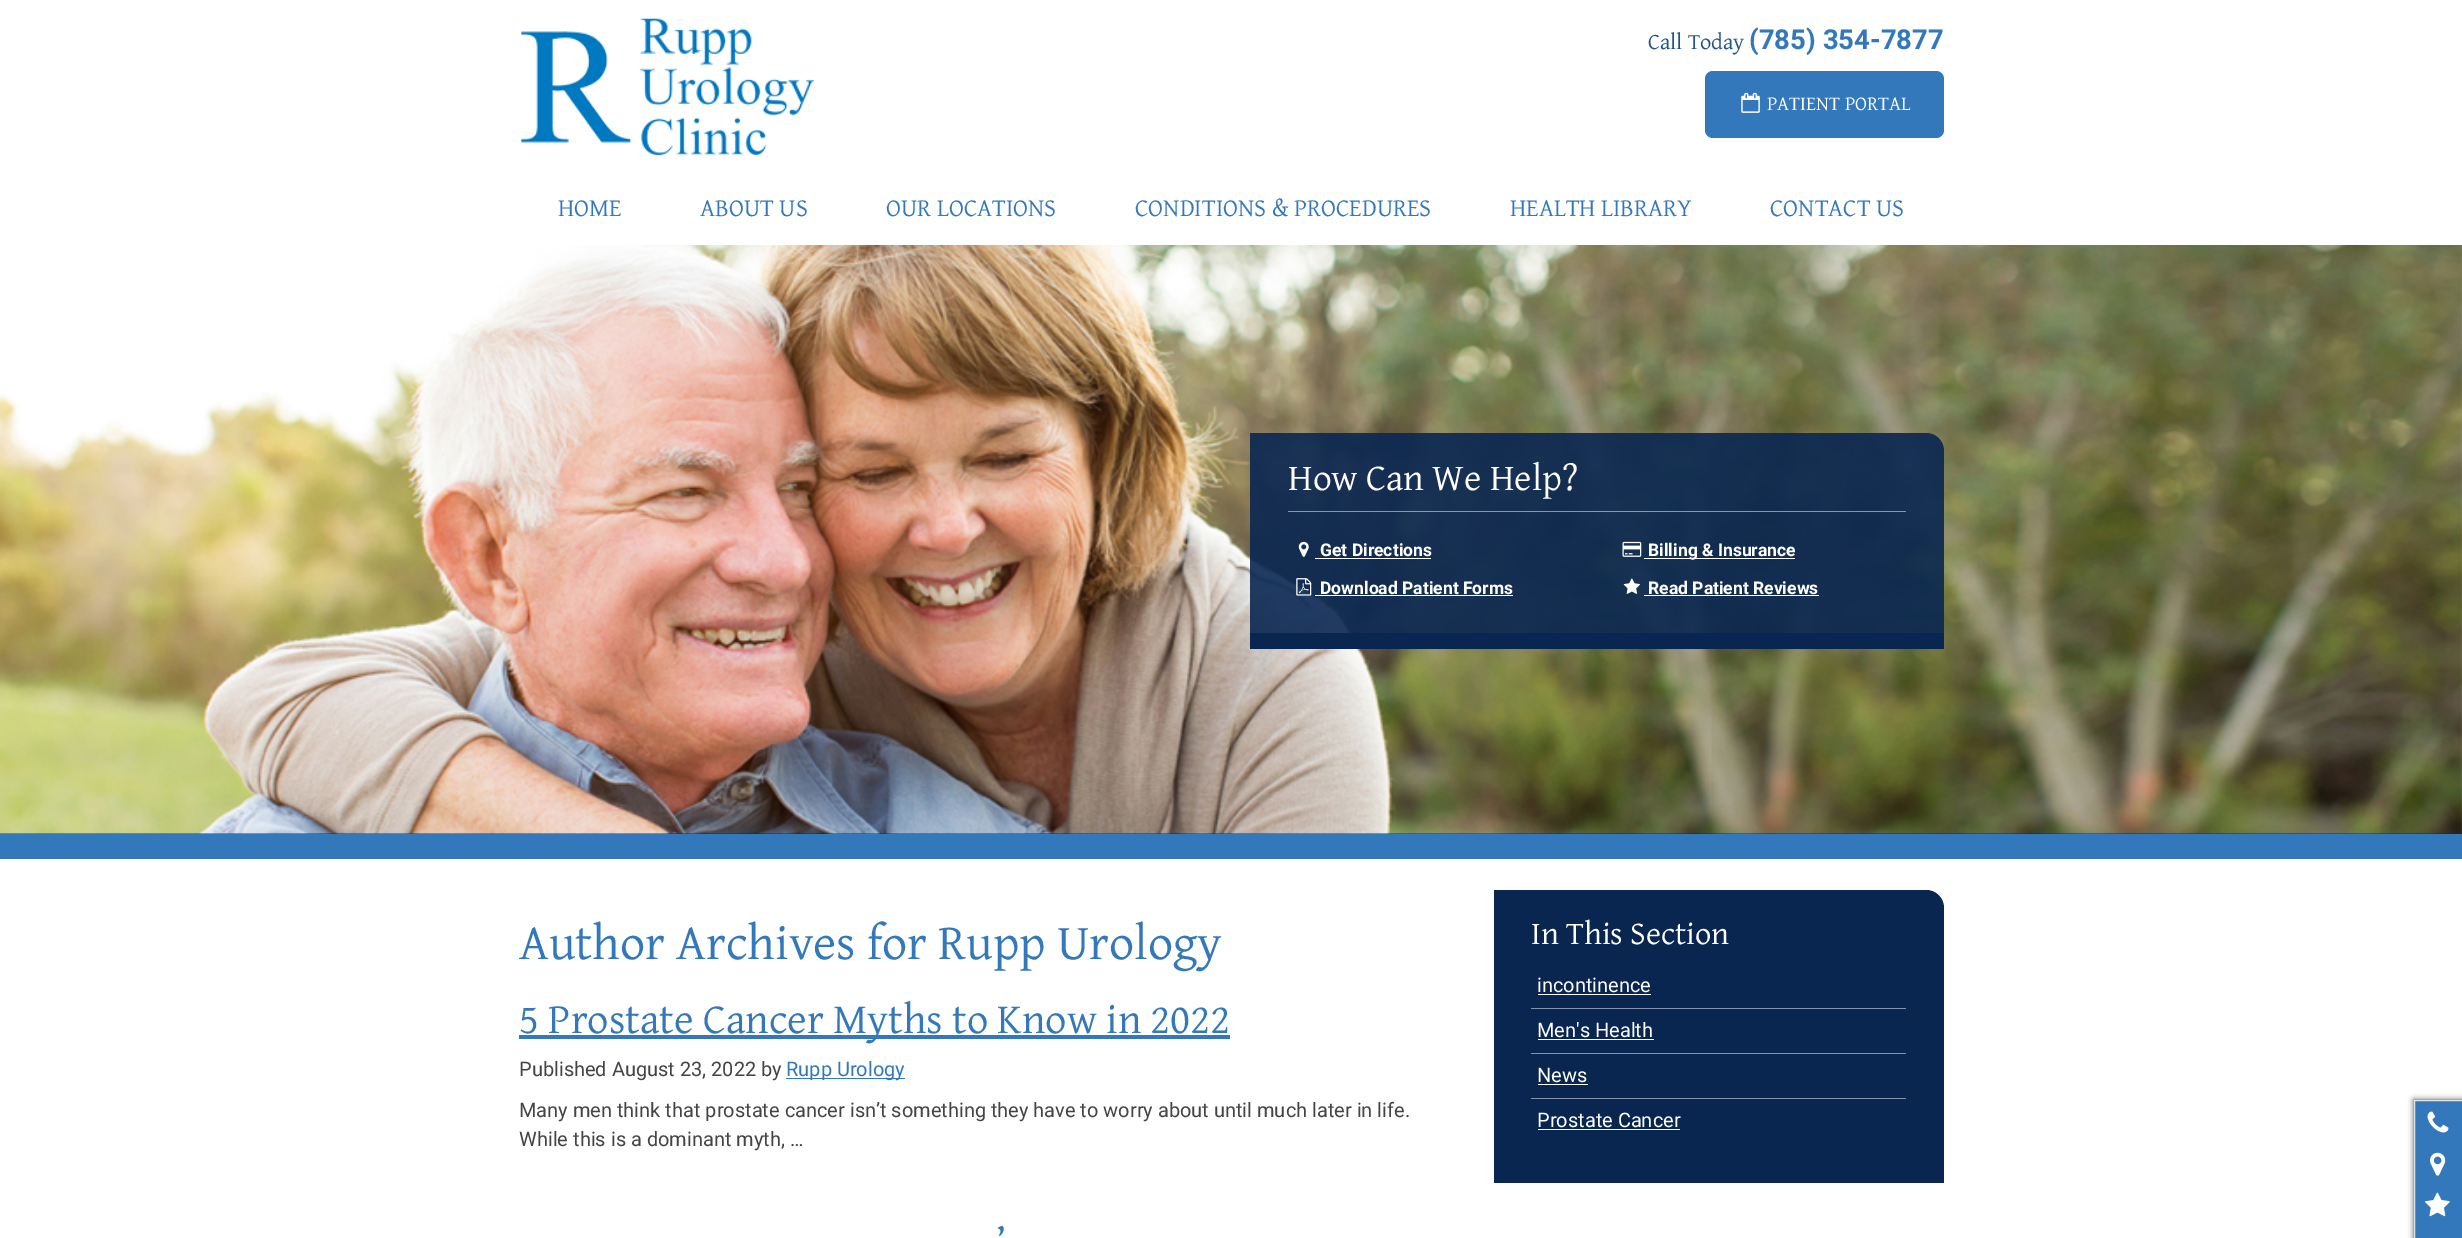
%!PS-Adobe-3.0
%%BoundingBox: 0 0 2462 1238
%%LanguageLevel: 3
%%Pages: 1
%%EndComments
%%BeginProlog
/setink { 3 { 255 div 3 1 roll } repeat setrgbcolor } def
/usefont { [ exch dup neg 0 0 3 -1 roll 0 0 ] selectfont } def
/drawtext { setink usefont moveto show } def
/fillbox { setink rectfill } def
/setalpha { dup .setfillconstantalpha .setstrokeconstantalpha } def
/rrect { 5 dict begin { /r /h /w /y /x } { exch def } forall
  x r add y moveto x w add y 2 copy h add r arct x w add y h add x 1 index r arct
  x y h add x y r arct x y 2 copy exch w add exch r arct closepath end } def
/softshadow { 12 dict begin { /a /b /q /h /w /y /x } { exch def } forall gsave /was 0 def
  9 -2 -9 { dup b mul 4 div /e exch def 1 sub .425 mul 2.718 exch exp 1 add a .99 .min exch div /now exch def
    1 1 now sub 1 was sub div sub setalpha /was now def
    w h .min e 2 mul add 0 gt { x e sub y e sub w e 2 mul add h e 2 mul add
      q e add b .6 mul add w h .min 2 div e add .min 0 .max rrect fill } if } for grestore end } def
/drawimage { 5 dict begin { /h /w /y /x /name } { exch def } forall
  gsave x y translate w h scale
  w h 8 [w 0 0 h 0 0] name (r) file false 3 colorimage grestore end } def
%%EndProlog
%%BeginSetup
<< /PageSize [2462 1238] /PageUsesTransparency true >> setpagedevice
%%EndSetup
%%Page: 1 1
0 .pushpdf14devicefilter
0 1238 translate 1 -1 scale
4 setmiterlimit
0 0 2462 1238 255 255 255 fillbox
(assets/img1.rgb) 521 18 293 138 drawimage
(Call Today) 1648 49 /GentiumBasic-Regular 22.5 32 84 130 drawtext
(\(785\) 354-7877) 1749 49 /Roboto-Bold 27.5 50 120 187 drawtext
1705 71 239 67 8 rrect fill
(assets/img2.rgb) 1741 92 19 21 drawimage
(PATIENT PORTAL) 1767 110 /GentiumBasic-Regular 20 255 255 255 drawtext
(HOME) 558 216 /GentiumBasic-Regular 25 50 120 187 drawtext
(ABOUT US) 700 216 /GentiumBasic-Regular 25 50 120 187 drawtext
(OUR LOCATIONS) 886 216 /GentiumBasic-Regular 25 50 120 187 drawtext
(CONDITIONS & PROCEDURES) 1135 216 /GentiumBasic-Regular 25 50 120 187 drawtext
(HEALTH LIBRARY) 1510 216 /GentiumBasic-Regular 25 50 120 187 drawtext
(CONTACT US) 1770 216 /GentiumBasic-Regular 25 50 120 187 drawtext
0 833 2462 1 9 38 81 fillbox
0 834 2462 25 50 120 187 fillbox
(assets/img3.rgb) 0 245 2462 589 drawimage
0.9 setalpha
9 38 81 setink
1250 433 moveto 1926 433 lineto 1936 433 1944 441 1944 451 curveto 1944 649 lineto 1250 649 lineto closepath fill
1 setalpha
1250 633 694 16 9 38 81 fillbox
0.5 setalpha
1288 511 618 1 255 255 255 fillbox
1 setalpha
(How Can We Help?) 1288 490 /GentiumBasic-Regular 37.5 255 255 255 drawtext
(assets/img4.rgb) 1298 541 11 16 drawimage
(Get Directions) 1320 556 /Roboto-Bold 17.5 255 255 255 drawtext
1315 558 116 1 255 255 255 fillbox
(assets/img5.rgb) 1622 541 20 16 drawimage
1644 558 151 1 255 255 255 fillbox
(Billing & Insurance) 1648 556 /Roboto-Bold 17.5 255 255 255 drawtext
(assets/img6.rgb) 1296 578 16 18 drawimage
(Download Patient Forms) 1320 594 /Roboto-Bold 17.5 255 255 255 drawtext
1315 595 198 1 255 255 255 fillbox
(assets/img7.rgb) 1623 578 17 16 drawimage
(Read Patient Reviews) 1648 594 /Roboto-Bold 17.5 255 255 255 drawtext
1644 595 175 1 255 255 255 fillbox
(Author Archives for Rupp Urology) 519 959 /GentiumBasic-Regular 50 50 120 187 drawtext
519 1035 711 4 50 120 187 fillbox
(5 Prostate Cancer Myths to Know in 2022) 519 1033 /GentiumBasic-Regular 42.5 50 120 187 drawtext
(Published August 23, 2022 by) 519 1076 /Roboto-Regular 20 68 68 68 drawtext
786 1078 119 1 50 120 187 fillbox
(Rupp Urology) 786 1076 /Roboto-Regular 20 50 120 187 drawtext
(Many men think that prostate cancer isn’t something they have to worry about until much later in life.) 519 1117 /Roboto-Regular 20 68 68 68 drawtext
(While this is a dominant myth, …) 519 1146 /Roboto-Regular 20 68 68 68 drawtext
(’) 996 1256 /GentiumBasic-Regular 42.5 50 120 187 drawtext
9 38 81 setink
1494 890 moveto 1926 890 lineto 1936 890 1944 898 1944 908 curveto 1944 1183 lineto 1494 1183 lineto closepath fill
(In This Section) 1531 944 /GentiumBasic-Regular 32.5 255 255 255 drawtext
(incontinence) 1537 992 /Roboto-Regular 20 255 255 255 drawtext
1538 994 113 1 255 255 255 fillbox
1531 1008 375 1 132 147 168 fillbox
(Men's Health) 1537 1037 /Roboto-Regular 20 255 255 255 drawtext
1538 1039 116 1 255 255 255 fillbox
1531 1053 375 1 132 147 168 fillbox
(News) 1537 1082 /Roboto-Regular 20 255 255 255 drawtext
1538 1084 50 1 255 255 255 fillbox
1531 1098 375 1 132 147 168 fillbox
(Prostate Cancer) 1537 1127 /Roboto-Regular 20 255 255 255 drawtext
1538 1129 142 1 255 255 255 fillbox
0 0 0 setink
2414 1100 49 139 0 3 0.75 softshadow
50 120 187 setink
2414.5 1100.5 moveto 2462.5 1100.5 lineto 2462.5 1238.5 lineto 2414.5 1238.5 lineto closepath gsave fill grestore
227 227 227 setink
stroke
(assets/img8.rgb) 2427 1111 22 22 drawimage
(assets/img9.rgb) 2430 1152 16 24 drawimage
(assets/img10.rgb) 2425 1192 25 25 drawimage
.poppdf14devicefilter showpage
%%EOF
